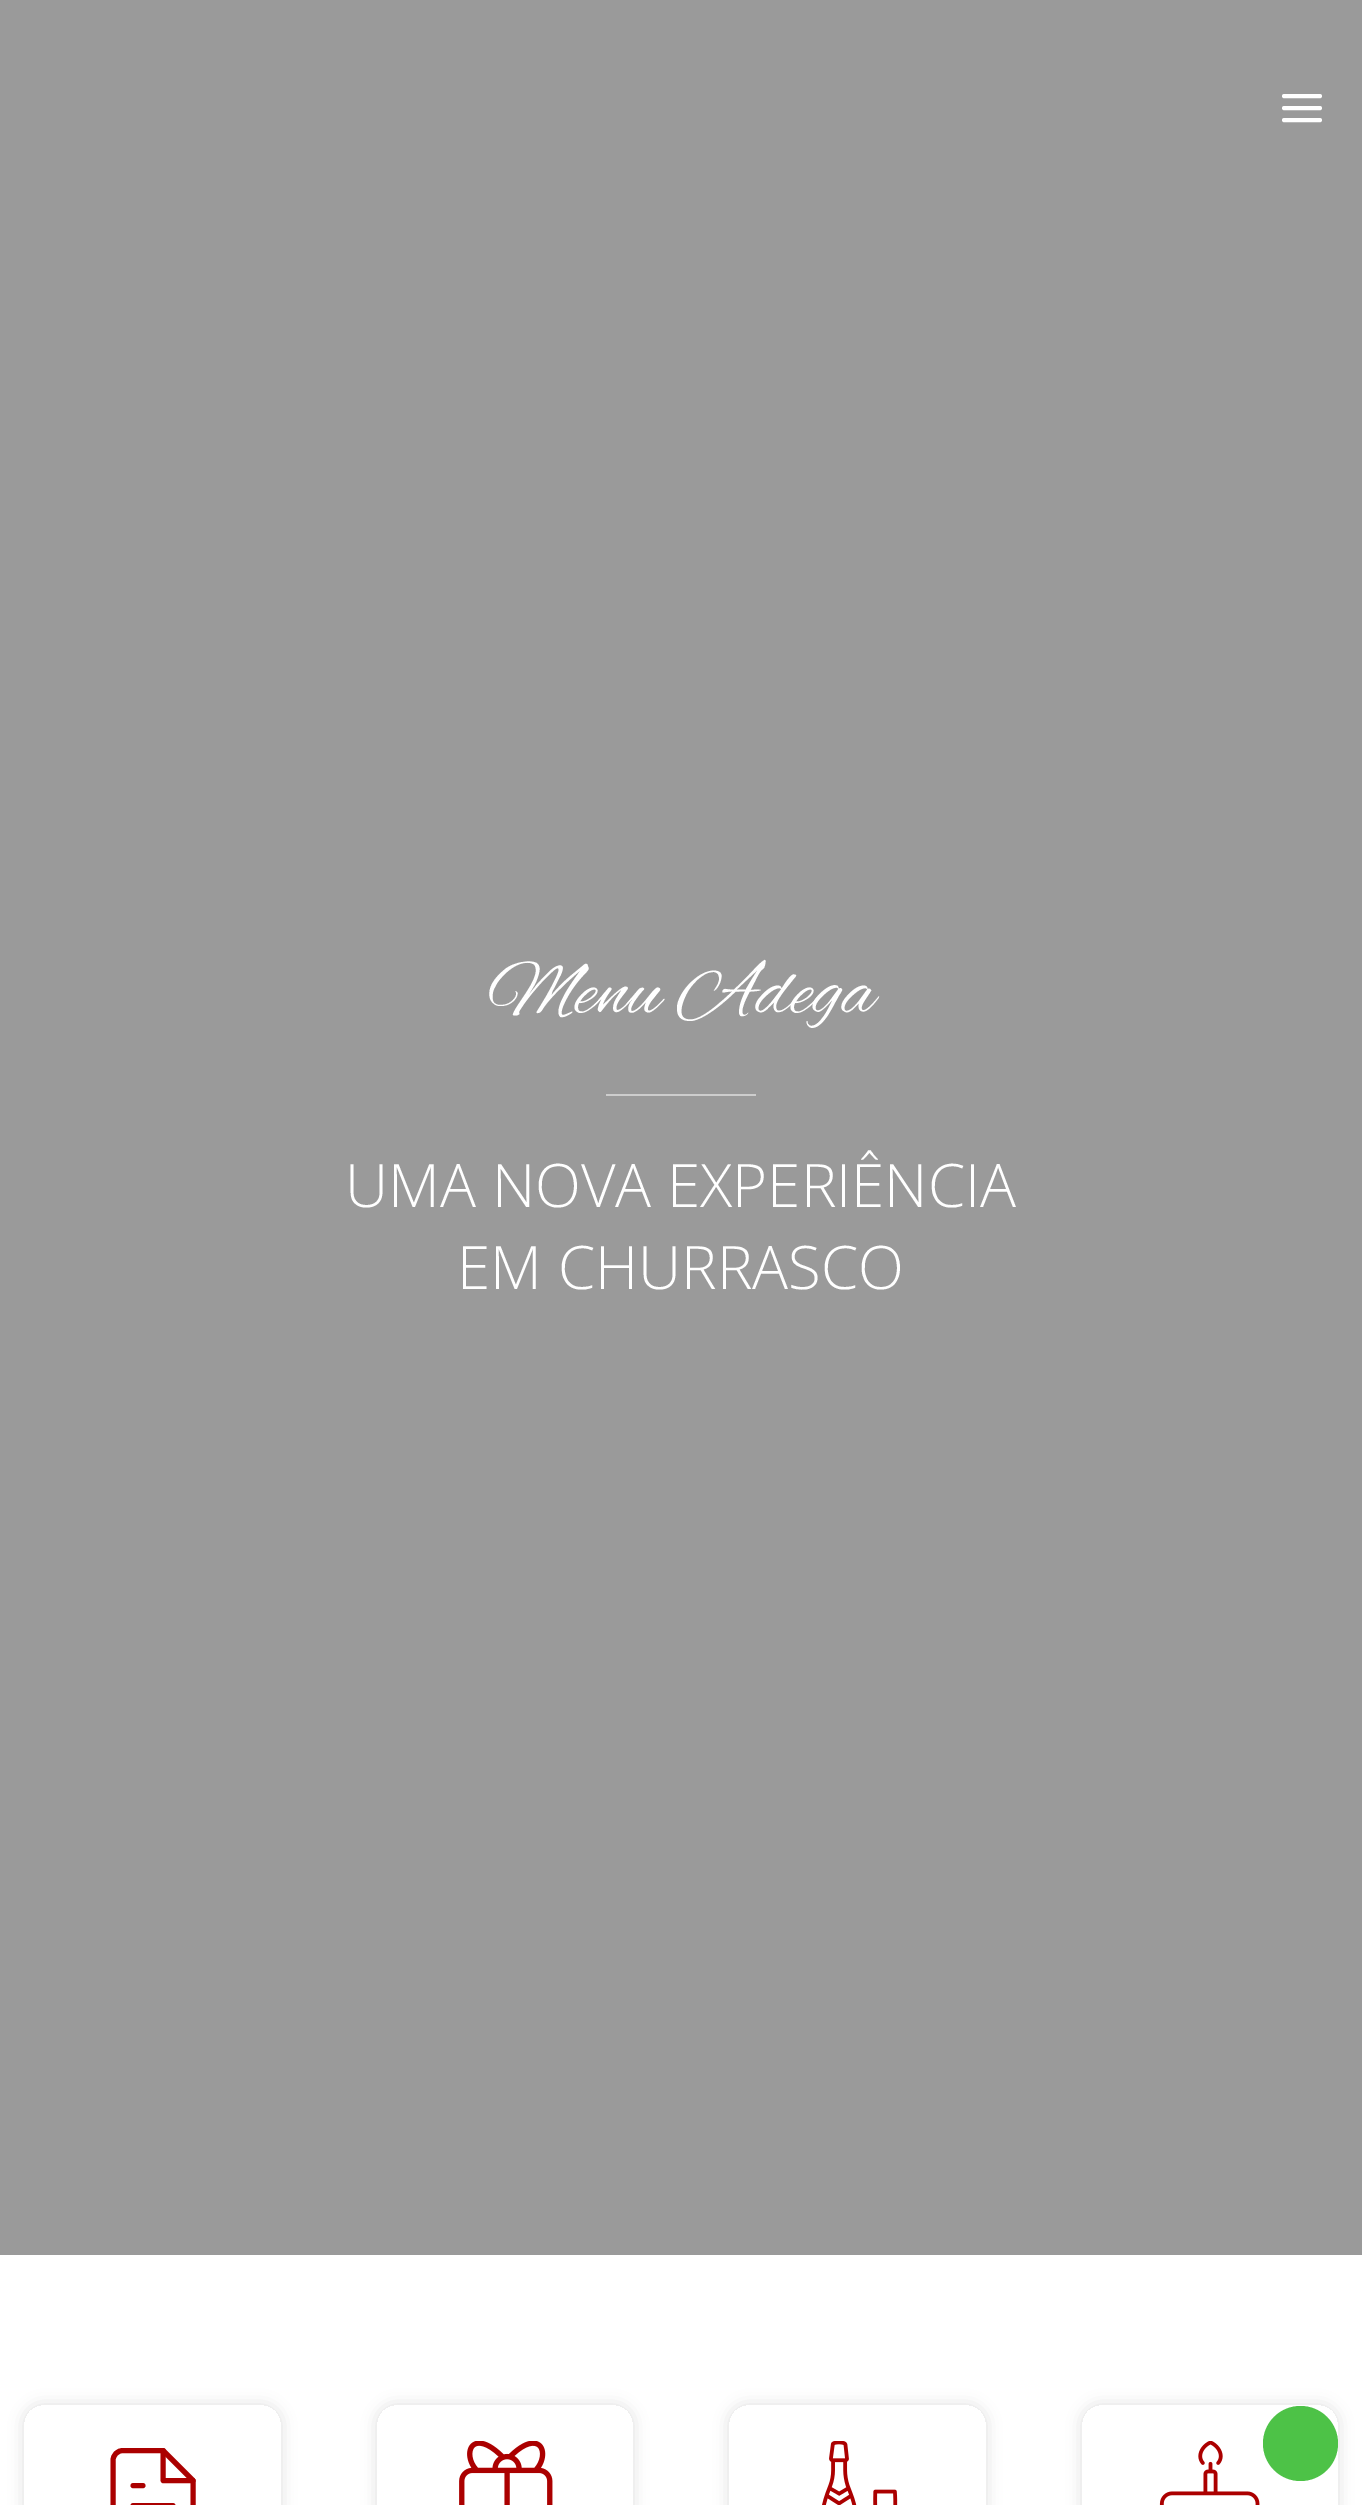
%!PS-Adobe-3.0
%%BoundingBox: 0 0 1362 2505
%%LanguageLevel: 3
%%Pages: 1
%%EndComments
%%BeginProlog
/setink { 3 { 255 div 3 1 roll } repeat setrgbcolor } def
/usefont { [ exch dup neg 0 0 3 -1 roll 0 0 ] selectfont } def
/drawtext { setink usefont moveto show } def
/fillbox { setink rectfill } def
/setalpha { dup .setfillconstantalpha .setstrokeconstantalpha } def
/disc { newpath 0 360 arc closepath } def
/rrect { 5 dict begin { /r /h /w /y /x } { exch def } forall
  x r add y moveto x w add y 2 copy h add r arct x w add y h add x 1 index r arct
  x y h add x y r arct x y 2 copy exch w add exch r arct closepath end } def
/softshadow { 12 dict begin { /a /b /q /h /w /y /x } { exch def } forall gsave /was 0 def
  9 -2 -9 { dup b mul 4 div /e exch def 1 sub .425 mul 2.718 exch exp 1 add a .99 .min exch div /now exch def
    1 1 now sub 1 was sub div sub setalpha /was now def
    w h .min e 2 mul add 0 gt { x e sub y e sub w e 2 mul add h e 2 mul add
      q e add b .6 mul add w h .min 2 div e add .min 0 .max rrect fill } if } for grestore end } def
/drawimage { 5 dict begin { /h /w /y /x /name } { exch def } forall
  gsave x y translate w h scale
  w h 8 [w 0 0 h 0 0] name (r) file false 3 colorimage grestore end } def
%%EndProlog
%%BeginSetup
<< /PageSize [1362 2505] /PageUsesTransparency true >> setpagedevice
%%EndSetup
%%Page: 1 1
0 .pushpdf14devicefilter
0 2505 translate 1 -1 scale
4 setmiterlimit
0 0 1362 2505 255 255 255 fillbox
0 0 1362 2255 154 154 154 fillbox
255 255 255 setink
4 setlinewidth
1 setlinecap
1 setlinejoin
1284 108 moveto 1320 108 lineto 1284 96 moveto 1320 96 lineto 1284 120 moveto 1320 120 lineto stroke
(Menu Adega) 488 1012 /AlexBrush-Regular 78 255 255 255 drawtext
606 1094 150 2 205 205 205 fillbox
(UMA NOVA EXPERIÊNCIA) 345 1207 /OpenSans-Light 60 255 255 255 drawtext
(EM CHURRASCO) 457 1289 /OpenSans-Light 60 255 255 255 drawtext
gsave
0 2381 moveto 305 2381 lineto 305 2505 lineto 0 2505 lineto closepath 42 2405 moveto 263 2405 lineto 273 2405 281 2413 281 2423 curveto 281 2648 lineto 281 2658 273 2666 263 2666 curveto 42 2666 lineto 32 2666 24 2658 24 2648 curveto 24 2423 lineto 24 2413 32 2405 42 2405 curveto closepath eoclip newpath
0 0 0 setink
24 2405 257 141 18 7.5 0.12 softshadow
grestore
171 0 0 setink
5 setlinewidth
163 2450.5 moveto 123 2450.5 lineto 117.5 2450.5 113 2455 113 2460.5 curveto 113 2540.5 lineto 113 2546 117.5 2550.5 123 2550.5 curveto 183 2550.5 lineto 188.5 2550.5 193 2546 193 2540.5 curveto 193 2480.5 lineto closepath stroke
163 2450.5 moveto 163 2480.5 lineto 193 2480.5 lineto stroke
173 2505.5 moveto 133 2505.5 lineto 143 2485.5 moveto 133 2485.5 lineto stroke
gsave
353 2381 moveto 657 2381 lineto 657 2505 lineto 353 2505 lineto closepath 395 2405 moveto 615 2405 lineto 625 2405 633 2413 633 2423 curveto 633 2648 lineto 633 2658 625 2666 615 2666 curveto 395 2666 lineto 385 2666 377 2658 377 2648 curveto 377 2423 lineto 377 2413 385 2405 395 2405 curveto closepath eoclip newpath
0 0 0 setink
377 2405 256 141 18 7.5 0.12 softshadow
grestore
(assets/img1.rgb) 459 2441 94 64 drawimage
gsave
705 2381 moveto 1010 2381 lineto 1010 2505 lineto 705 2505 lineto closepath 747 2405 moveto 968 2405 lineto 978 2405 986 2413 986 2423 curveto 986 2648 lineto 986 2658 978 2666 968 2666 curveto 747 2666 lineto 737 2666 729 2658 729 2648 curveto 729 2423 lineto 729 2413 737 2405 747 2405 curveto closepath eoclip newpath
0 0 0 setink
729 2405 257 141 18 7.5 0.12 softshadow
grestore
(assets/img2.rgb) 822 2441 76 64 drawimage
gsave
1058 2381 moveto 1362 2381 lineto 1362 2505 lineto 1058 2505 lineto closepath 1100 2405 moveto 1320 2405 lineto 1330 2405 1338 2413 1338 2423 curveto 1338 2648 lineto 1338 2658 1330 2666 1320 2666 curveto 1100 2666 lineto 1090 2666 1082 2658 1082 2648 curveto 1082 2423 lineto 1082 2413 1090 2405 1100 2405 curveto closepath eoclip newpath
0 0 0 setink
1082 2405 256 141 18 7.5 0.12 softshadow
grestore
(assets/img3.rgb) 1159 2441 101 64 drawimage
77 194 71 setink
1300.5 2443.5 37.5 disc fill
.poppdf14devicefilter showpage
%%EOF
